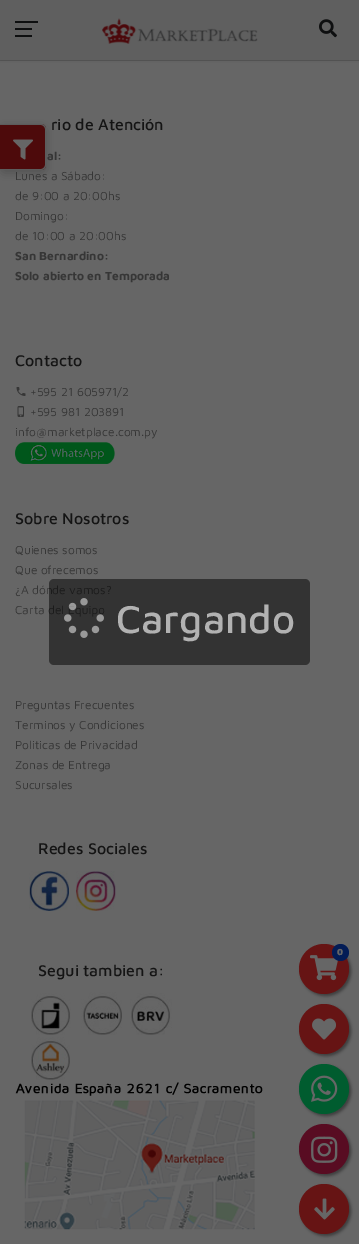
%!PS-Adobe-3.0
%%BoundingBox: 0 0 359 1244
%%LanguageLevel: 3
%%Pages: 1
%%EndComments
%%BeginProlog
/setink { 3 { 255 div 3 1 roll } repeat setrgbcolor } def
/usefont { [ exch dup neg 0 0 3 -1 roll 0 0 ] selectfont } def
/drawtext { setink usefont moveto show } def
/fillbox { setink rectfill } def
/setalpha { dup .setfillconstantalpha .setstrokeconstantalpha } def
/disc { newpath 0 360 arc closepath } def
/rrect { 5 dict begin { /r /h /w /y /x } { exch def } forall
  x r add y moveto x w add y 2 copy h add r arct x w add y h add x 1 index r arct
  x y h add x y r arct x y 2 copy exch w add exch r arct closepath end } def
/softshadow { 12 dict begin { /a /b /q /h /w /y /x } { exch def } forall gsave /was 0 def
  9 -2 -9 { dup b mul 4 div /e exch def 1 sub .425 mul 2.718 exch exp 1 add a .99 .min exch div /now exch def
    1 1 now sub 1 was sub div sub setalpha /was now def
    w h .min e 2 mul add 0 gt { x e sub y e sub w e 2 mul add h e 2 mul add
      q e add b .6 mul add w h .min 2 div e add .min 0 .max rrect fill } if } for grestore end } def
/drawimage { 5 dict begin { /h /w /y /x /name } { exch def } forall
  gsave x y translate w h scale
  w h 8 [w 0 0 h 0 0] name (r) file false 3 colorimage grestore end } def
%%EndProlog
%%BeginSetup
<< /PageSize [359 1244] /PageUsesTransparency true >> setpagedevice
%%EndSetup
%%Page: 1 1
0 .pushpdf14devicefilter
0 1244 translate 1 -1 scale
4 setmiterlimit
0 0 359 1244 102 102 102 fillbox
0 60 359 1 95 95 95 fillbox
0 0 0 setink
0 0 359 60 0 2 0.16 softshadow
0 0 359 60 0 0.5 0.3 softshadow
0 0 359 60 95 95 95 fillbox
15 28 17 2 14 15 16 fillbox
15 21 23 2 14 15 16 fillbox
15 35 17 2 14 15 16 fillbox
(assets/img1.rgb) 102 18 156 26 drawimage
(assets/img2.rgb) 319 19 18 19 drawimage
0 0 0 setink
0 127 46 46 5 5 0.18 softshadow
77 10 11 setink
0 124 moveto 41 124 lineto 44 124 46 126 46 129 curveto 46 165 lineto 46 168 44 170 41 170 curveto 0 170 lineto closepath fill
92 92 92 setink
0 124 moveto 41 124 lineto 44 124 46 126 46 129 curveto 46 165 lineto 46 168 44 170 41 170 curveto 0 170 lineto closepath 0 125 moveto 41 125 lineto 43 125 45 127 45 129 curveto 45 165 lineto 45 167 43 169 41 169 curveto 0 169 lineto closepath eofill
(assets/img3.rgb) 13 139 20 21 drawimage
(rio de Atención) 51 130 /MavenPro-Medium 16 20 20 20 drawtext
(al:) 47 160 /MavenPro-Bold 12 54 54 54 drawtext
(Lunes a Sábado:) 15 180 /MavenPro-Regular 12 54 54 54 drawtext
(de 9:00 a 20:00hs) 15 200 /MavenPro-Regular 12 54 54 54 drawtext
(Domingo:) 15 220 /MavenPro-Regular 12 54 54 54 drawtext
(de 10:00 a 20:00hs) 15 240 /MavenPro-Regular 12 54 54 54 drawtext
(San Bernardino:) 15 260 /MavenPro-Bold 12 54 54 54 drawtext
(Solo abierto en Temporada) 15 280 /MavenPro-Bold 12 54 54 54 drawtext
(Contacto) 15 366 /MavenPro-Medium 16 20 20 20 drawtext
(assets/img4.rgb) 16 387 10 9 drawimage
(+595 21 605971/2) 30 396 /MavenPro-Regular 12 54 54 54 drawtext
(assets/img5.rgb) 17 406 7 11 drawimage
(+595 981 203891) 30 416 /MavenPro-Regular 12 54 54 54 drawtext
(info@marketplace.com.py) 15 436 /MavenPro-Regular 12 54 54 54 drawtext
(assets/img6.rgb) 15 442 100 22 drawimage
(Sobre Nosotros) 15 524 /MavenPro-Medium 16 20 20 20 drawtext
(Quienes somos) 15 554 /MavenPro-Regular 12 54 54 54 drawtext
(Que ofrecemos) 15 574 /MavenPro-Regular 12 54 54 54 drawtext
(¿A dónde vamos?) 15 594 /MavenPro-Regular 12 54 54 54 drawtext
(Carta del Equipo) 15 614 /MavenPro-Regular 12 54 54 54 drawtext
(Preguntas Frecuentes) 15 709 /MavenPro-Regular 12 54 54 54 drawtext
(Terminos y Condiciones) 15 729 /MavenPro-Regular 12 54 54 54 drawtext
(Politicas de Privacidad) 15 749 /MavenPro-Regular 12 54 54 54 drawtext
(Zonas de Entrega) 15 769 /MavenPro-Regular 12 54 54 54 drawtext
(Sucursales) 15 789 /MavenPro-Regular 12 54 54 54 drawtext
(Redes Sociales) 38 854 /MavenPro-Medium 16 20 20 20 drawtext
(assets/img7.rgb) 29 871 40 40 drawimage
(assets/img8.rgb) 76 871 40 40 drawimage
(Segui tambien a:) 38 976 /MavenPro-Medium 16 20 20 20 drawtext
(assets/img9.rgb) 31 993 40 42 drawimage
(assets/img10.rgb) 81 992 41 43 drawimage
(assets/img11.rgb) 130 993 42 42 drawimage
(assets/img12.rgb) 31 1037 39 43 drawimage
(assets/img13.rgb) 15 1082 248 148 drawimage
61 61 61 setink
301 946 50 50 25 1.5 1 softshadow
102 20 20 setink
324 969 25 disc fill
(assets/img14.rgb) 310 955 28 26 drawimage
3 28 86 setink
340.5 952.5 8.5 disc fill
(0) 337 955 /MavenPro-Black 9 102 102 102 drawtext
61 61 61 setink
301 1006 50 50 25 1.5 1 softshadow
102 20 20 setink
324 1029 25 disc fill
(assets/img15.rgb) 312 1018 24 22 drawimage
61 61 61 setink
301 1066 50 50 25 1.5 1 softshadow
0 92 47 setink
324 1089 25 disc fill
(assets/img16.rgb) 311 1075 27 27 drawimage
61 61 61 setink
301 1126 50 50 25 1.5 1 softshadow
88 12 34 setink
324 1149 25 disc fill
(assets/img17.rgb) 311 1136 27 27 drawimage
61 61 61 setink
301 1186 50 50 25 1.5 1 softshadow
102 20 20 setink
324 1209 25 disc fill
(assets/img18.rgb) 314 1198 21 22 drawimage
0.5 setalpha
0 0 0 setink
49 579 261 86 5 rrect fill
1 setalpha
(assets/img19.rgb) 64 598 40 40 drawimage
(Cargando) 116 633 /MavenPro-Medium 40 178 178 178 drawtext
.poppdf14devicefilter showpage
%%EOF
